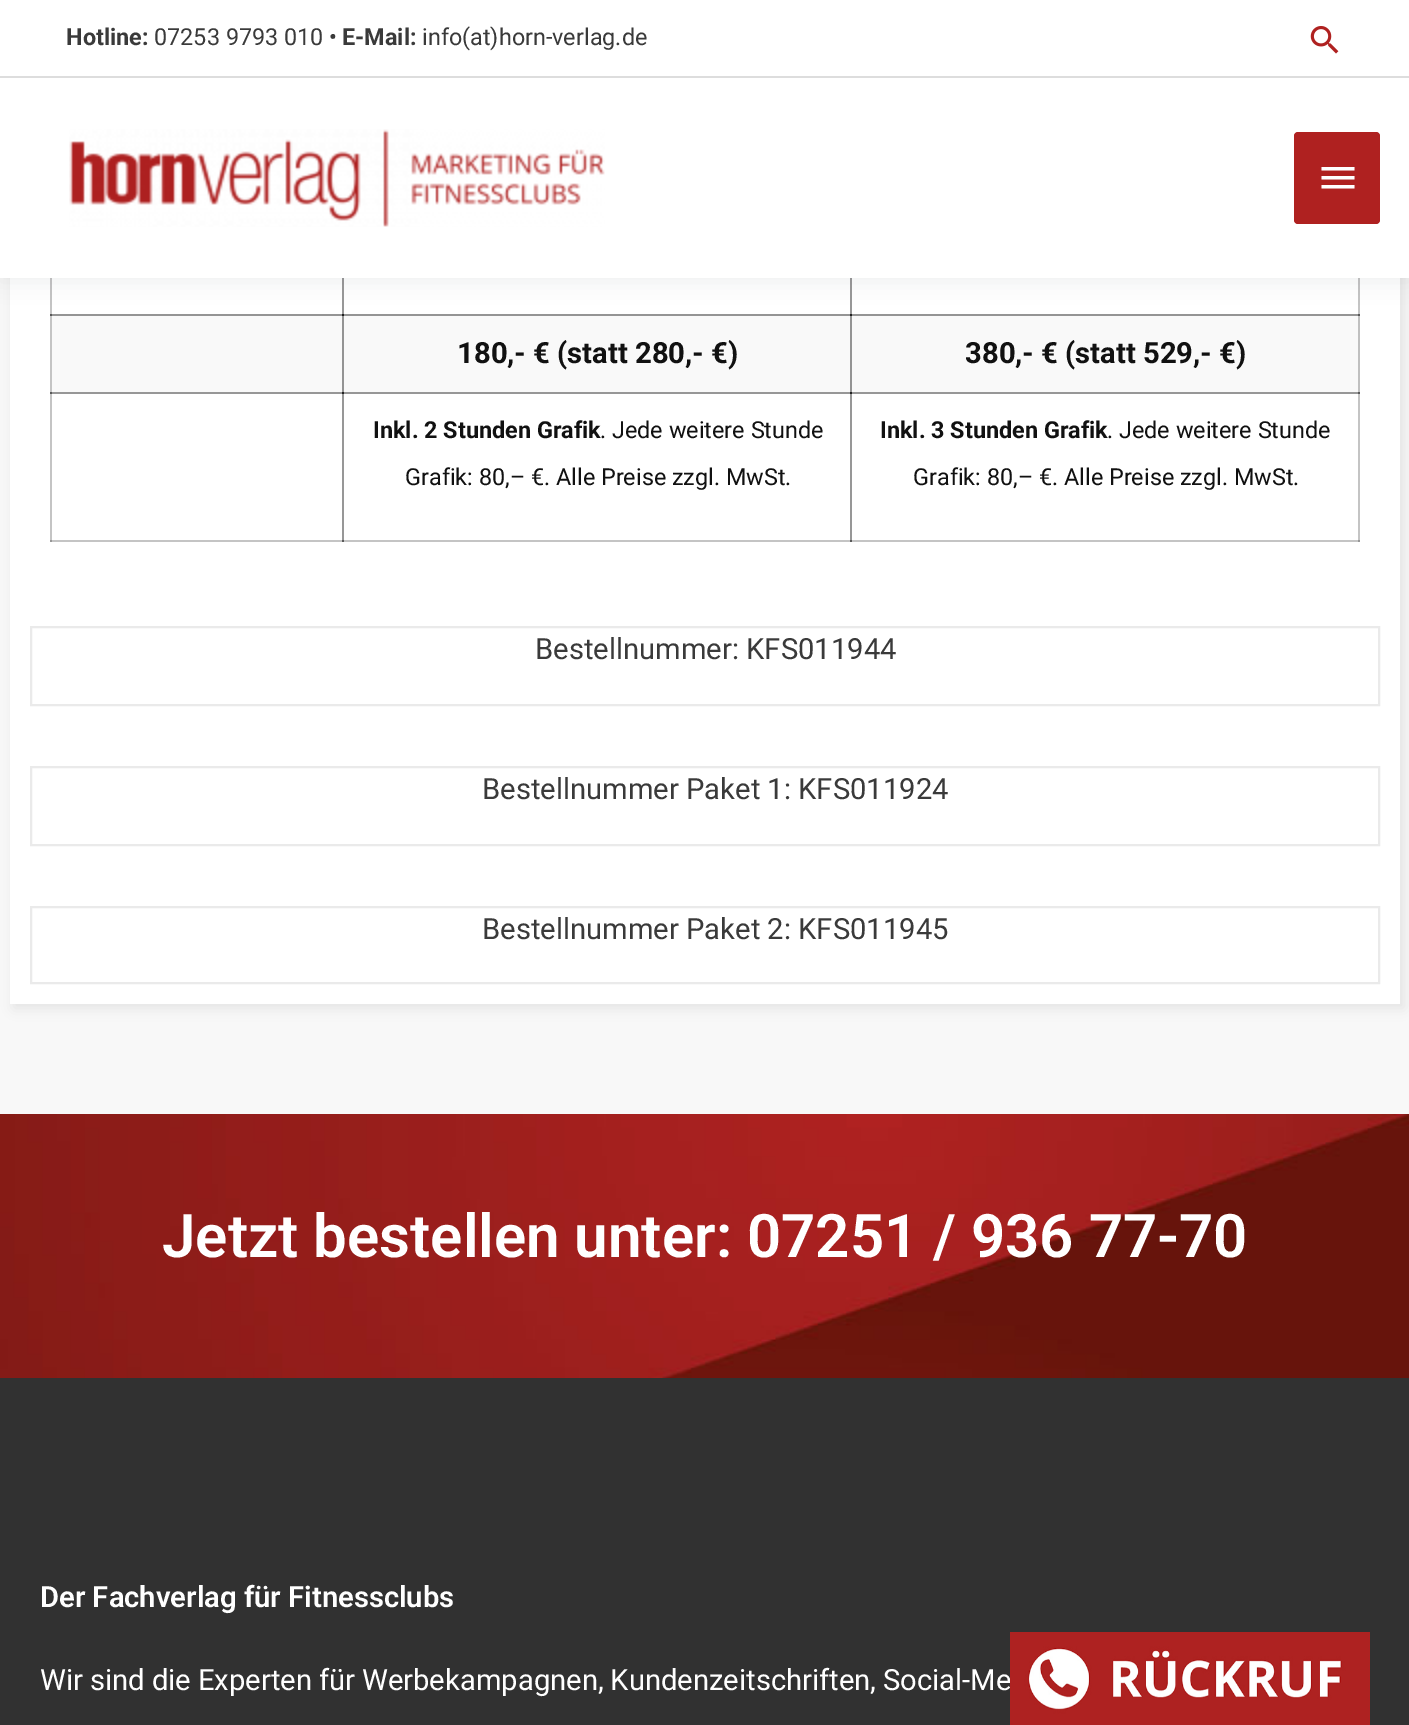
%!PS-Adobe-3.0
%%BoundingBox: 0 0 1409 1725
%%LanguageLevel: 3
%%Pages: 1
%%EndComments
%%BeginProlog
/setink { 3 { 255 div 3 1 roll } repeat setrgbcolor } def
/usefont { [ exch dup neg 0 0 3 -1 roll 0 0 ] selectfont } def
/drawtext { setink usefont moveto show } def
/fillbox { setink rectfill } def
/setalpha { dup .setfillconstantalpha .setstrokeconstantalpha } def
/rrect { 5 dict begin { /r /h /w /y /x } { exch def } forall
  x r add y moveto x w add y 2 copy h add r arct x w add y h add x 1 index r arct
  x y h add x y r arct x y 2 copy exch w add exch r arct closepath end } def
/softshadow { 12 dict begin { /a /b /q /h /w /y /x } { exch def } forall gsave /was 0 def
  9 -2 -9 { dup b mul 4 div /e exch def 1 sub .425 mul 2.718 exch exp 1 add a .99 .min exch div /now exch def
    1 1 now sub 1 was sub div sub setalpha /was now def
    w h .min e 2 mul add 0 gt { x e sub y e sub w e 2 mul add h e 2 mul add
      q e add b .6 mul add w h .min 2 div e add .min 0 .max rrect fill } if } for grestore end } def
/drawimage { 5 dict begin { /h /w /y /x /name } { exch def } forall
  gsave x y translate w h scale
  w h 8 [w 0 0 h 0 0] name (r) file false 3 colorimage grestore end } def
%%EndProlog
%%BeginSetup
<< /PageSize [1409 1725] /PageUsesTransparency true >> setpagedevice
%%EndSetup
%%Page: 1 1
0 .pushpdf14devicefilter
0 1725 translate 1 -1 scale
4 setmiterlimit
0 0 1409 1725 248 248 248 fillbox
0 0 0 setink
14 -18 1390 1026 0 6 0.08 softshadow
10 278 1390 726 255 255 255 fillbox
50 278 2 264 196 196 196 fillbox
342 278 2 38 151 151 151 fillbox
850 278 2 38 151 151 151 fillbox
1358 278 2 38 196 196 196 fillbox
36 50 66 setink
0 82 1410 200 0 10 0.07 softshadow
0 0 1409 76 255 255 255 fillbox
0 76 1409 2 221 221 221 fillbox
(Hotline:) 66 45 /Roboto-Bold 23.4 58 58 58 drawtext
(07253 9793 010 •) 154 45 /Roboto-Regular 23.4 58 58 58 drawtext
(E-Mail:) 342 45 /Roboto-Bold 23.4 58 58 58 drawtext
(info\(at\)horn-verlag.de) 422 45 /Roboto-Regular 23.4 58 58 58 drawtext
(assets/img1.rgb) 1310 26 29 28 drawimage
0 78 1409 200 255 255 255 fillbox
(assets/img2.rgb) 69 129 536 98 drawimage
175 33 32 setink
1294 132 86 92 4 rrect fill
255 255 255 setink
1321.5 167 moveto 1354.5 167 lineto 1354.5 170.5 lineto 1321.5 170.5 lineto closepath 1321.5 179.5 moveto 1321.5 176 lineto 1354.5 176 lineto 1354.5 179.5 lineto closepath 1321.5 188.5 moveto 1321.5 185 lineto 1354.5 185 lineto 1354.5 188.5 lineto closepath fill
50 314 2 2 89 89 89 fillbox
50 540 294 2 196 196 196 fillbox
50 540 2 2 151 151 151 fillbox
50 392 294 2 151 151 151 fillbox
50 392 2 2 89 89 89 fillbox
342 392 2 150 151 151 151 fillbox
342 540 510 2 196 196 196 fillbox
342 540 2 2 89 89 89 fillbox
342 392 510 2 151 151 151 fillbox
342 392 2 2 32 32 32 fillbox
850 392 2 150 151 151 151 fillbox
850 540 510 2 196 196 196 fillbox
850 540 2 2 89 89 89 fillbox
1358 392 2 150 196 196 196 fillbox
1358 540 2 2 151 151 151 fillbox
52 316 290 76 249 249 249 fillbox
52 314 800 2 148 148 148 fillbox
342 314 2 78 148 148 148 fillbox
342 314 2 2 31 31 31 fillbox
344 316 506 76 249 249 249 fillbox
850 314 2 78 148 148 148 fillbox
(180,- € \(statt 280,- €\)) 457 363 /Roboto-Bold 29.2 17 17 17 drawtext
852 316 506 76 249 249 249 fillbox
1358 314 2 78 192 192 192 fillbox
850 314 510 2 148 148 148 fillbox
850 314 2 2 31 31 31 fillbox
1358 314 2 2 88 88 88 fillbox
(380,- € \(statt 529,- €\)) 965 363 /Roboto-Bold 29.2 17 17 17 drawtext
(Inkl. 2 Stunden Grafik) 373 438 /Roboto-Bold 23.4 17 17 17 drawtext
(. Jede weitere Stunde) 600 438 /Roboto-Regular 23.4 17 17 17 drawtext
(Grafik: 80,– €. Alle Preise zzgl. MwSt.) 405 485 /Roboto-Regular 23.4 17 17 17 drawtext
850 392 510 2 151 151 151 fillbox
850 392 2 2 32 32 32 fillbox
1358 392 2 2 89 89 89 fillbox
(Inkl. 3 Stunden Grafik) 880 438 /Roboto-Bold 23.4 17 17 17 drawtext
(. Jede weitere Stunde) 1107 438 /Roboto-Regular 23.4 17 17 17 drawtext
(Grafik: 80,– €. Alle Preise zzgl. MwSt.) 913 485 /Roboto-Regular 23.4 17 17 17 drawtext
234 234 234 setink
2 setlinewidth
31 627 1348 78 rectstroke
(Bestellnummer: KFS011944) 535 659 /Roboto-Regular 29.2 58 58 58 drawtext
234 234 234 setink
31 767 1348 78 rectstroke
(Bestellnummer Paket 1: KFS011924) 482 799 /Roboto-Regular 29.2 58 58 58 drawtext
234 234 234 setink
31 907 1348 76 rectstroke
(Bestellnummer Paket 2: KFS011945) 482 939 /Roboto-Regular 29.2 58 58 58 drawtext
(assets/img3.rgb) 0 1114 1409 264 drawimage
(Jetzt bestellen unter: 07251 / 936 77-70) 162 1257 /Roboto-SemiBold 60 255 255 255 drawtext
0 1378 1409 347 49 49 49 fillbox
(Der Fachverlag für Fitnessclubs) 40 1607 /Roboto-SemiBold 29.2 255 255 255 drawtext
/Roboto-Regular 29.2 usefont
40 1690 moveto -0.25 0 32 (Wir sind die Experten für Werbekampagnen, Kundenzeitschriften, Social-Me) widthshow
(assets/img4.rgb) 1010 1632 360 93 drawimage
.poppdf14devicefilter showpage
%%EOF
